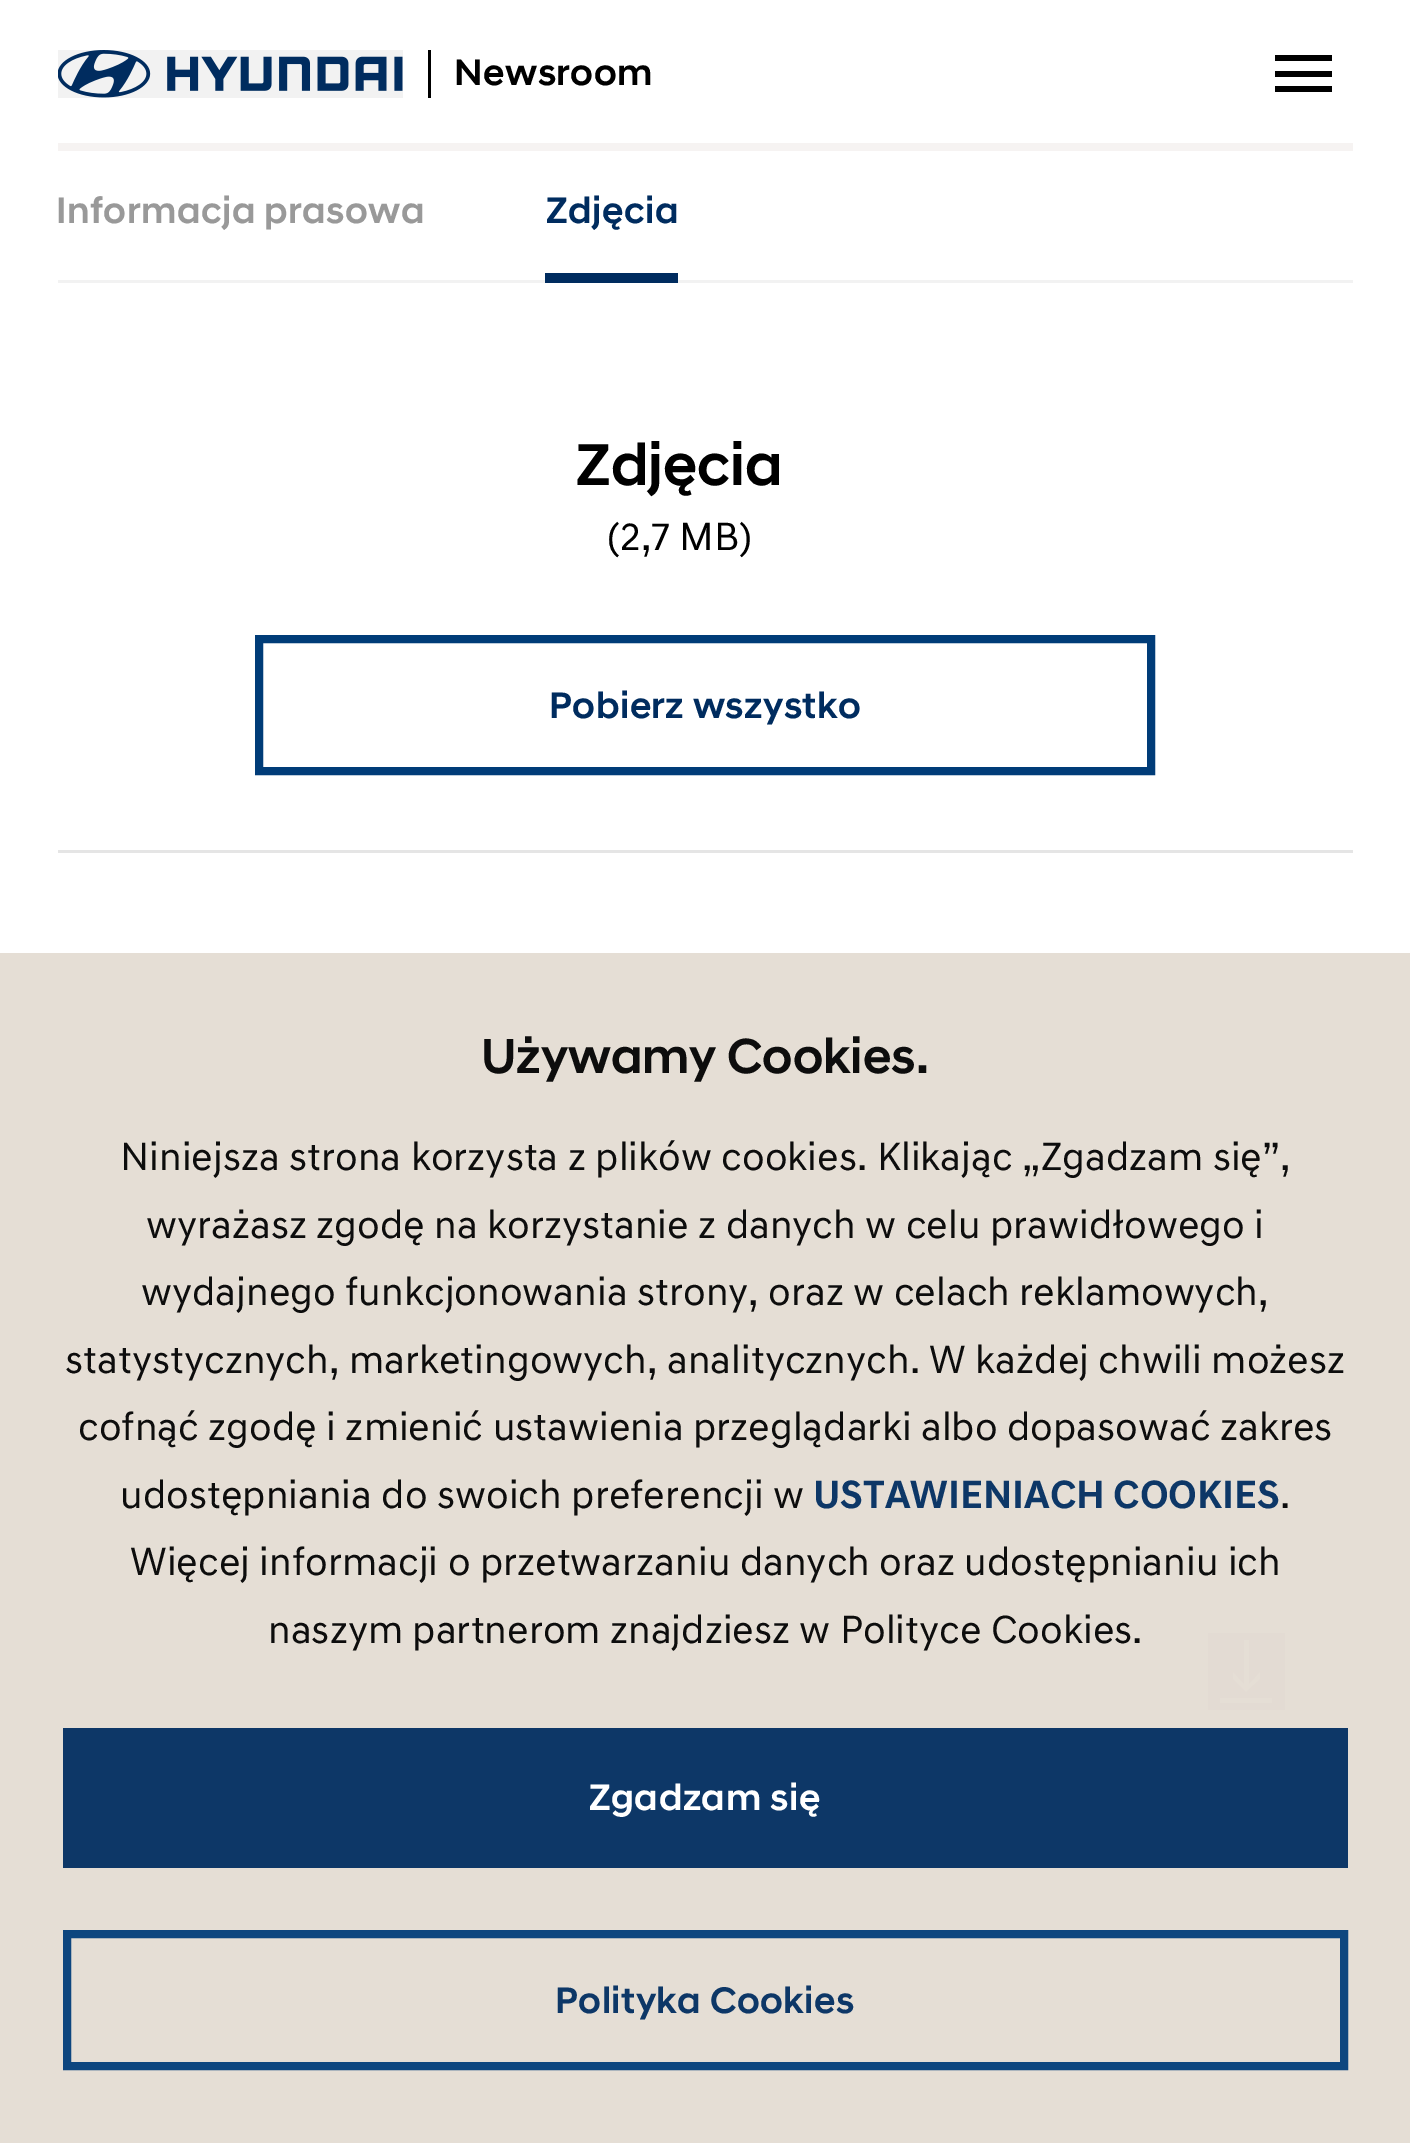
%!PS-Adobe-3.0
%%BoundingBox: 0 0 1410 2143
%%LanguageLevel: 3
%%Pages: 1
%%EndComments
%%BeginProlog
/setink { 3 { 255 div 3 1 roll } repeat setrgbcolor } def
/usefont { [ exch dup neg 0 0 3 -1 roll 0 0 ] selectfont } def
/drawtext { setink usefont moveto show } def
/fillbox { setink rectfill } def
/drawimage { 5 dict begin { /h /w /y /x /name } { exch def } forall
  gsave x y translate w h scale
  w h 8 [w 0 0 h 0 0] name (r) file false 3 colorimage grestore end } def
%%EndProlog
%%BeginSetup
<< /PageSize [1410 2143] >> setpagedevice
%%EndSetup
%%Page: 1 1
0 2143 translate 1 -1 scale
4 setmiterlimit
0 0 1410 2143 255 255 255 fillbox
0 953 1410 1190 229 222 213 fillbox
58 143 1295 8 246 243 242 fillbox
58 50 345 48 242 242 242 fillbox
(assets/img1.rgb) 58 50 345 48 drawimage
428 50 3 48 0 0 0 fillbox
/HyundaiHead-Medium 37.5 usefont
454 85 moveto 0.5 0 (Newsroom) ashow
1332 55 moveto 1332 61 lineto 1275 61 lineto 1275 55 lineto closepath 1332 71 moveto 1332 77 lineto 1275 77 lineto 1275 71 lineto closepath 1332 86 moveto 1332 92 lineto 1275 92 lineto 1275 86 lineto closepath fill
58 280 1295 3 242 242 242 fillbox
153 153 153 setink
56 223 moveto 0.5 0 (Informacja prasowa) ashow
545 273 133 10 0 44 95 fillbox
546 223 moveto 0.5 0 (Zdjęcia) ashow
(Zdjęcia) 576 485 /HyundaiHead-Medium 60 0 0 0 drawtext
(\(2,7 MB\)) 607 550 /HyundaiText-Regular 40 0 0 0 drawtext
0 60 120 setink
8 setlinewidth
259 639 892 132 rectstroke
/HyundaiHead-Medium 37.5 usefont
0 44 95 setink
549 718 moveto 0.5 0 (Pobierz wszystko) ashow
58 850 1295 3 229 229 229 fillbox
1208 1633 77 77 227 219 211 fillbox
229 222 213 setink
1260 1679 moveto 1260 1672 lineto 1249 1684 lineto 1249 1640 lineto 1244 1640 lineto 1244 1684 lineto 1233 1672 lineto 1233 1679 lineto 1246 1692 lineto closepath 1220 1698 moveto 1272 1698 lineto 1272 1703 lineto 1220 1703 lineto closepath fill
(Używamy Cookies.) 481 1073 /HyundaiHead-Medium 50 13 13 13 drawtext
(Niniejsza strona korzysta z plików cookies. Klikając „Zgadzam się”,) 120 1170 /HyundaiText-Regular 40 13 13 13 drawtext
(wyrażasz zgodę na korzystanie z danych w celu prawidłowego i) 146 1238 /HyundaiText-Regular 40 13 13 13 drawtext
(wydajnego funkcjonowania strony, oraz w celach reklamowych,) 141 1305 /HyundaiText-Regular 40 13 13 13 drawtext
(statystycznych, marketingowych, analitycznych. W każdej chwili możesz) 65 1373 /HyundaiText-Regular 40 13 13 13 drawtext
(cofnąć zgodę i zmienić ustawienia przeglądarki albo dopasować zakres) 78 1440 /HyundaiText-Regular 40 13 13 13 drawtext
(udostępniania do swoich preferencji w) 120 1508 /HyundaiText-Regular 40 13 13 13 drawtext
(USTAWIENIACH COOKIES) 813 1508 /HyundaiText-Bold 40 13 55 103 drawtext
(.) 1280 1508 /HyundaiText-Regular 40 13 13 13 drawtext
(Więcej informacji o przetwarzaniu danych oraz udostępnianiu ich) 130 1575 /HyundaiText-Regular 40 13 13 13 drawtext
(naszym partnerom znajdziesz w Polityce Cookies.) 268 1643 /HyundaiText-Regular 40 13 13 13 drawtext
63 1728 1285 140 13 55 103 fillbox
/HyundaiHead-Medium 37.5 usefont
255 255 255 setink
589 1810 moveto 0.5 0 (Zgadzam się) ashow
13 70 127 setink
67 1934 1277 132 rectstroke
13 55 103 setink
555 2013 moveto 0.5 0 (Polityka Cookies) ashow
showpage
%%EOF
